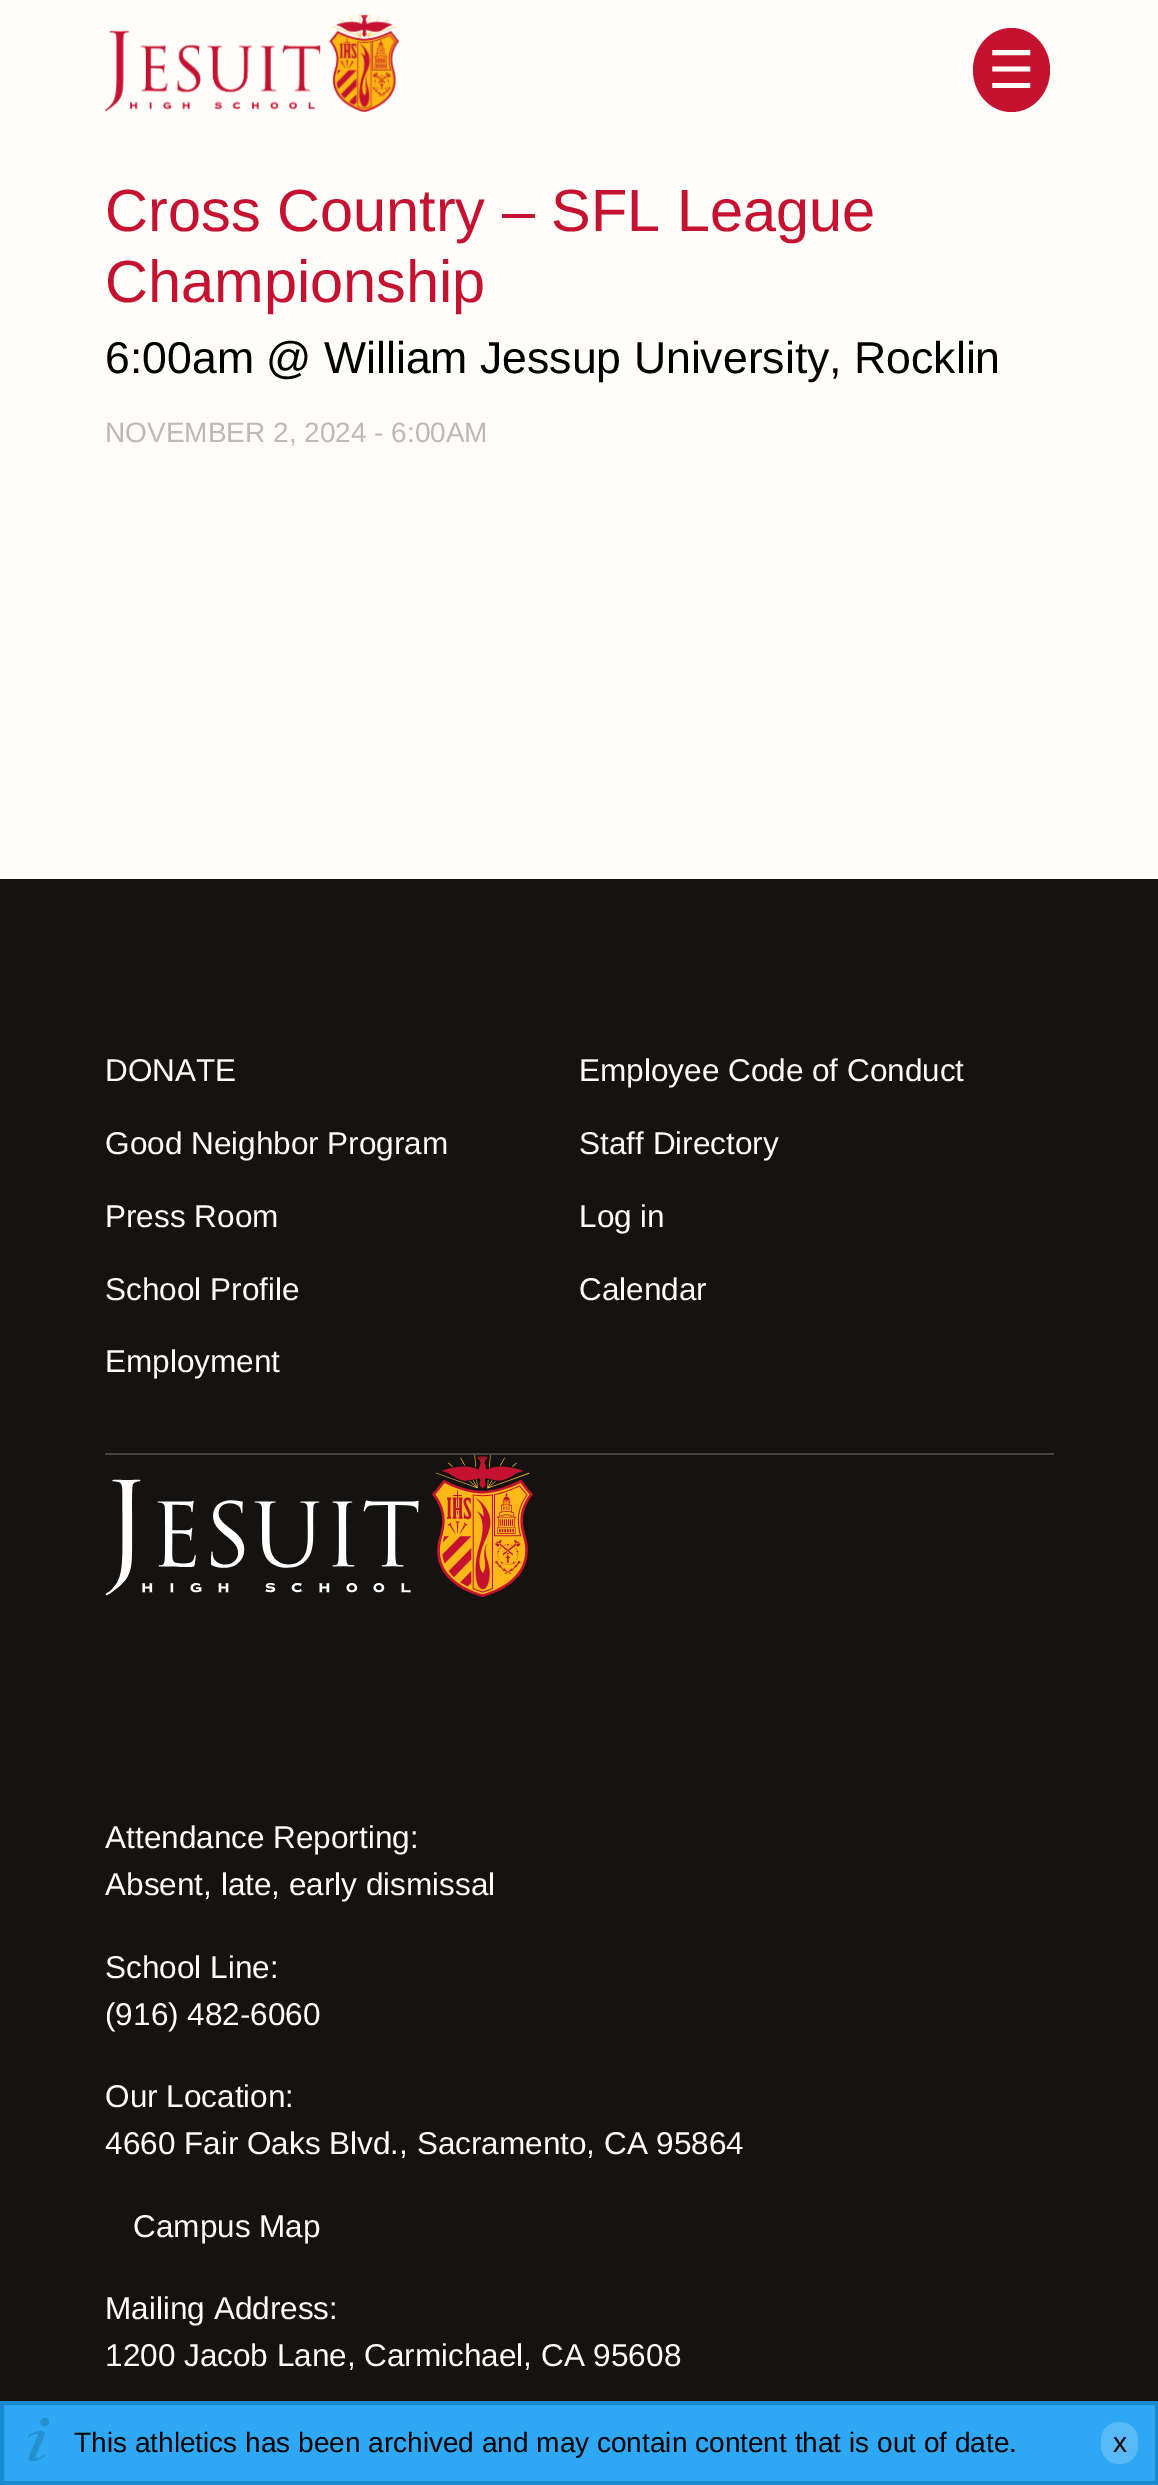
%!PS-Adobe-3.0
%%BoundingBox: 0 0 1158 2485
%%LanguageLevel: 3
%%Pages: 1
%%EndComments
%%BeginProlog
/setink { 3 { 255 div 3 1 roll } repeat setrgbcolor } def
/usefont { [ exch dup neg 0 0 3 -1 roll 0 0 ] selectfont } def
/drawtext { setink usefont moveto show } def
/fillbox { setink rectfill } def
/rrect { 5 dict begin { /r /h /w /y /x } { exch def } forall
  x r add y moveto x w add y 2 copy h add r arct x w add y h add x 1 index r arct
  x y h add x y r arct x y 2 copy exch w add exch r arct closepath end } def
/drawimage { 5 dict begin { /h /w /y /x /name } { exch def } forall
  gsave x y translate w h scale
  w h 8 [w 0 0 h 0 0] name (r) file false 3 colorimage grestore end } def
%%EndProlog
%%BeginSetup
<< /PageSize [1158 2485] >> setpagedevice
%%EndSetup
%%Page: 1 1
0 2485 translate 1 -1 scale
4 setmiterlimit
0 0 1158 2485 255 253 250 fillbox
(assets/img1.rgb) 105 14 294 98 drawimage
196 18 48 setink
1011.5 28 moveto 1033 28 1050 47 1050 70 curveto 1050 93 1033 112 1011.5 112 curveto 990 112 973 93 973 70 curveto 973 47 990 28 1011.5 28 curveto closepath fill
(☰) 988 88 /DejaVuSans-Regular 52 255 253 250 drawtext
(Cross Country – SFL League) 105 231 /LiberationSans-Regular 59.5 196 18 48 drawtext
(Championship) 105 302 /LiberationSans-Regular 59.5 196 18 48 drawtext
(6:00am @ William Jessup University, Rocklin) 105 373 /LiberationSans-Regular 44.6 0 0 0 drawtext
(NOVEMBER 2, 2024 - 6:00AM) 105 442 /LiberationSans-Regular 28 187 186 185 drawtext
4 2405 1151 76 46 168 245 fillbox
(assets/img2.rgb) 28 2417 21 45 drawimage
26 137 207 setink
4 setlinewidth
2 2403 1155 80 rectstroke
(This athletics has been archived and may contain content that is out of date.) 74 2452 /LiberationSans-Regular 28 0 0 0 drawtext
88 185 247 setink
1101 2422 37 42 18 rrect fill
(x) 1113 2452 /LiberationSans-Regular 28 0 0 0 drawtext
0 879 1158 1522 20 19 17 fillbox
105 1453 949 2 69 68 65 fillbox
(DONATE) 105 1081 /LiberationSans-Regular 31.5 255 253 250 drawtext
(Good Neighbor Program) 105 1154 /LiberationSans-Regular 31.5 255 253 250 drawtext
(Press Room) 105 1227 /LiberationSans-Regular 31.5 255 253 250 drawtext
(School Profile) 105 1300 /LiberationSans-Regular 31.5 255 253 250 drawtext
(Employment) 105 1372 /LiberationSans-Regular 31.5 255 253 250 drawtext
(Employee Code of Conduct) 579 1081 /LiberationSans-Regular 31.5 255 253 250 drawtext
(Staff Directory) 579 1154 /LiberationSans-Regular 31.5 255 253 250 drawtext
(Log in) 579 1227 /LiberationSans-Regular 31.5 255 253 250 drawtext
(Calendar) 579 1300 /LiberationSans-Regular 31.5 255 253 250 drawtext
(assets/img3.rgb) 105 1454 428 143 drawimage
(Attendance Reporting:) 105 1848 /LiberationSans-Regular 31.5 255 253 250 drawtext
(Absent, late, early dismissal) 105 1895 /LiberationSans-Regular 31.5 255 253 250 drawtext
(School Line:) 105 1978 /LiberationSans-Regular 31.5 255 253 250 drawtext
(\(916\) 482-6060) 105 2025 /LiberationSans-Regular 31.5 255 253 250 drawtext
(Our Location:) 105 2107 /LiberationSans-Regular 31.5 255 253 250 drawtext
(4660 Fair Oaks Blvd., Sacramento, CA 95864) 105 2154 /LiberationSans-Regular 31.5 255 253 250 drawtext
(Campus Map) 133 2237 /LiberationSans-Regular 31.5 255 253 250 drawtext
(Mailing Address:) 105 2319 /LiberationSans-Regular 31.5 255 253 250 drawtext
(1200 Jacob Lane, Carmichael, CA 95608) 105 2366 /LiberationSans-Regular 31.5 255 253 250 drawtext
showpage
%%EOF
